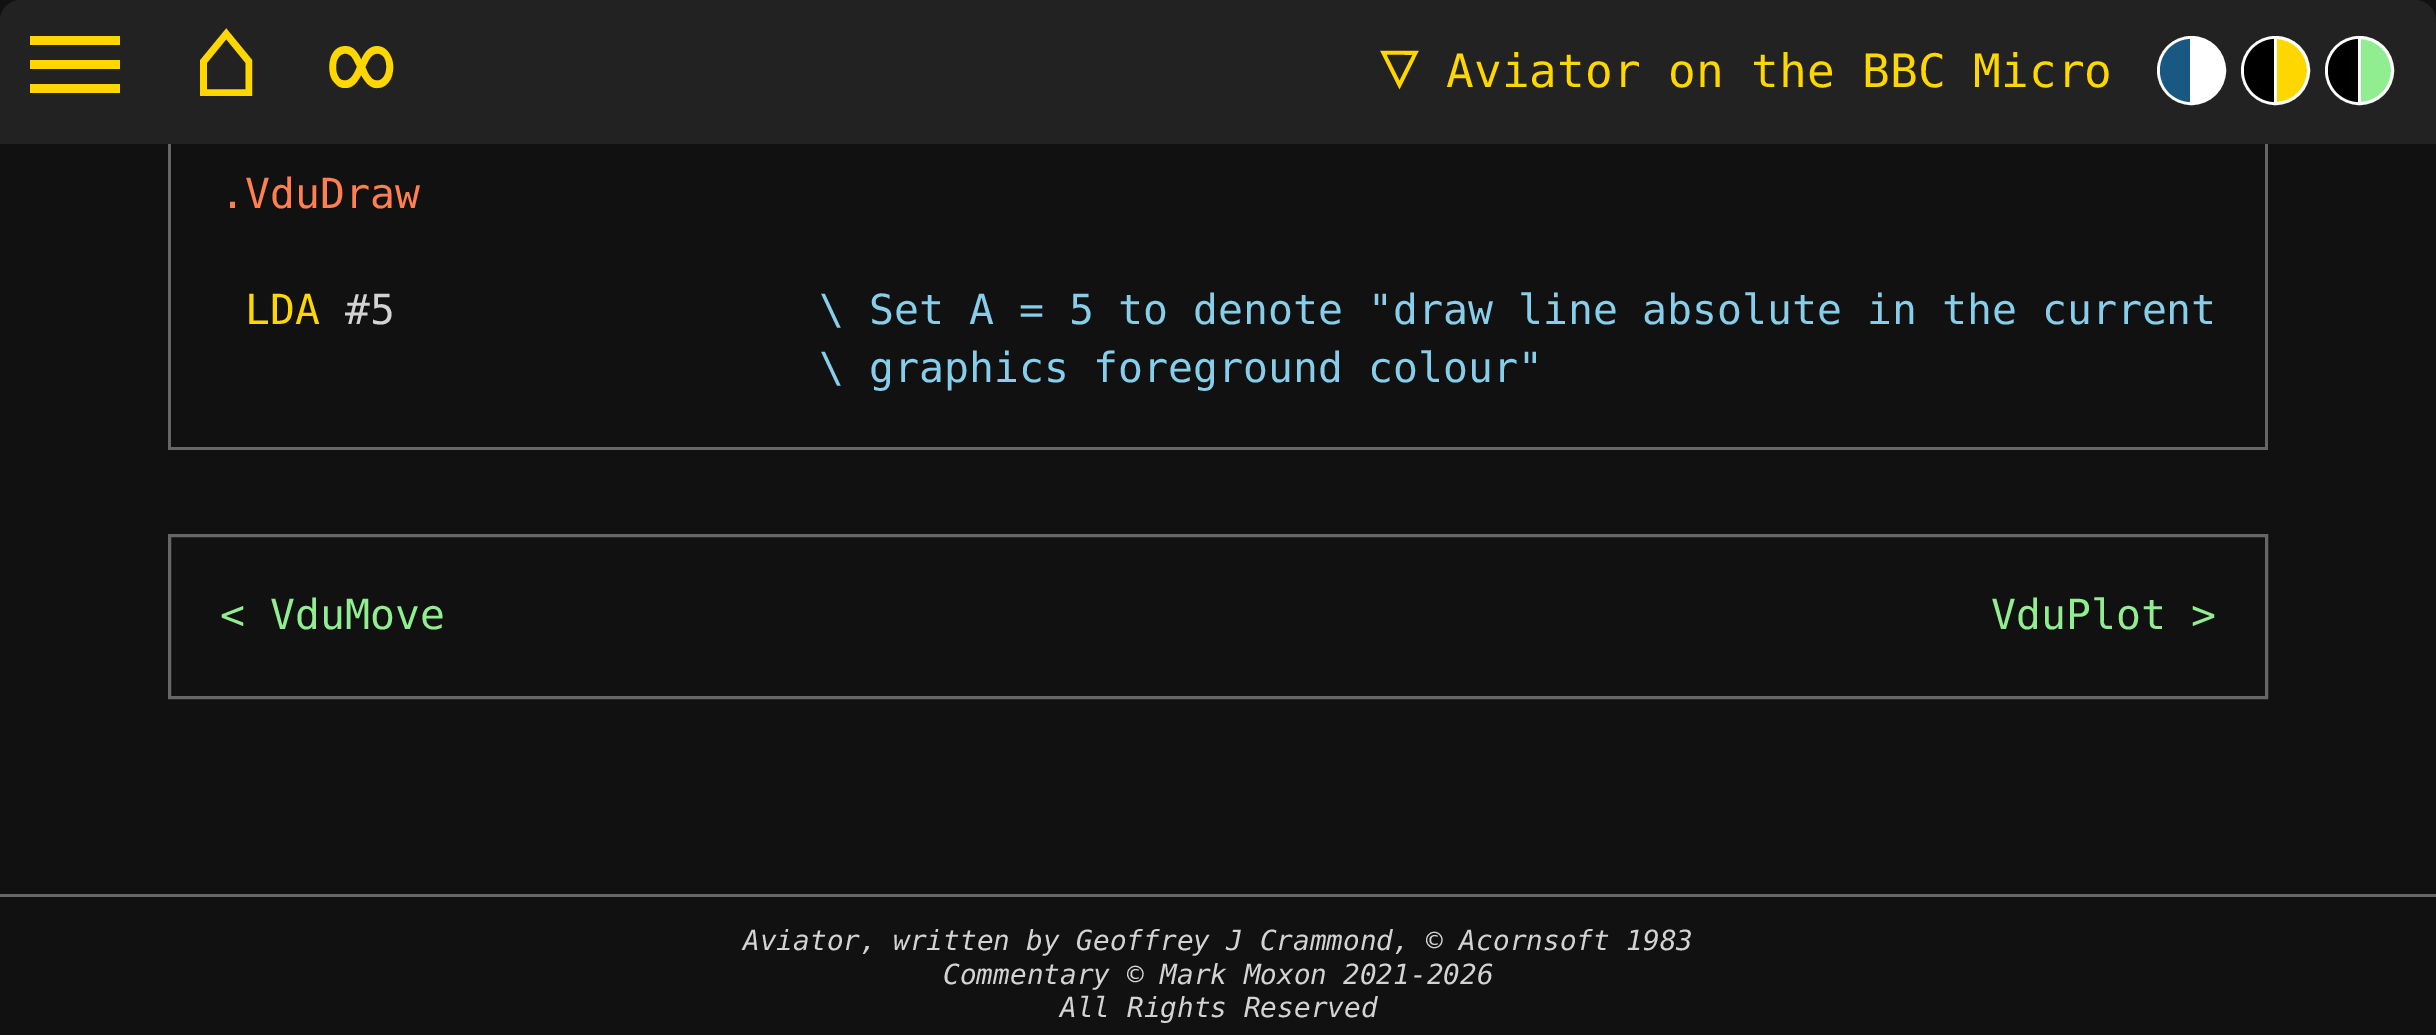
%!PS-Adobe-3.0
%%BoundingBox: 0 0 2436 1035
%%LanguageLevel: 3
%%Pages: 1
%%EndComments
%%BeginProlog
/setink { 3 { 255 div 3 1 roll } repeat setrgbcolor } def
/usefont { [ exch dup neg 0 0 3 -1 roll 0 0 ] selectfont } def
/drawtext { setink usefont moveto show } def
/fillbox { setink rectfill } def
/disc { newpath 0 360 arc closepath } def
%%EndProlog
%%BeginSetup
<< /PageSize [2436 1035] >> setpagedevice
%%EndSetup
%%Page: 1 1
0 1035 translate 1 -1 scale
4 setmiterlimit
0 0 2436 1035 17 17 17 fillbox
34 34 34 setink
21 0 moveto 2415 0 lineto 2426.5 0 2436 9.5 2436 21 curveto 2436 144 lineto 0 144 lineto 0 21 lineto 0 9.5 9.5 0 21 0 curveto closepath fill
21 0 moveto 150 0 lineto 150 129 lineto 0 129 lineto 0 21 lineto 0 9.5 9.5 0 21 0 curveto closepath fill
30 36 90 9 255 215 0 fillbox
30 60 90 9 255 215 0 fillbox
30 84 90 9 255 215 0 fillbox
(⌂) 192 96 /DejaVuSansMono-Regular 114 255 215 0 drawtext
(∞) 327 102 /DejaVuSansMono-Regular 114 255 215 0 drawtext
(▽) 1380 87 /DejaVuSansMono-Regular 65 255 215 0 drawtext
(Aviator on the BBC Micro) 1446 87 /DejaVuSansMono-Regular 46.1 255 215 0 drawtext
255 255 255 setink
2191.5 70.5 33 disc gsave fill grestore
3 setlinewidth
stroke
24 88 130 setink
2191.5 39 moveto 2193 39 lineto 2193 102 lineto 2191.5 102 lineto 2174 102 2160 88 2160 70.5 curveto 2160 53 2174 39 2191.5 39 curveto closepath fill
2190 39 3 63 255 255 255 fillbox
255 215 0 setink
2275.5 70.5 33 disc gsave fill grestore
255 255 255 setink
stroke
0 0 0 setink
2275.5 39 moveto 2277 39 lineto 2277 102 lineto 2275.5 102 lineto 2258 102 2244 88 2244 70.5 curveto 2244 53 2258 39 2275.5 39 curveto closepath fill
2274 39 3 63 255 255 255 fillbox
144 238 144 setink
2359.5 70.5 33 disc gsave fill grestore
255 255 255 setink
stroke
0 0 0 setink
2359.5 39 moveto 2361 39 lineto 2361 102 lineto 2359.5 102 lineto 2342 102 2328 88 2328 70.5 curveto 2328 53 2342 39 2359.5 39 curveto closepath fill
2358 39 3 63 255 255 255 fillbox
2265 144 3 306 102 102 102 fillbox
168 447 2100 3 102 102 102 fillbox
168 144 3 306 102 102 102 fillbox
(.VduDraw) 220 208 /DejaVuSansMono-Regular 41.45 255 127 80 drawtext
(LDA) 245 324 /DejaVuSansMono-Regular 41.45 255 215 0 drawtext
(#5) 345 324 /DejaVuSansMono-Regular 41.45 211 211 211 drawtext
(\\ Set A = 5 to denote "draw line absolute in the current) 819 324 /DejaVuSansMono-Regular 41.45 135 206 235 drawtext
(\\ graphics foreground colour") 819 382 /DejaVuSansMono-Regular 41.45 135 206 235 drawtext
102 102 102 setink
169.5 535.5 2097 162 rectstroke
(< VduMove) 220 629 /DejaVuSansMono-Regular 41.45 144 238 144 drawtext
(VduPlot >) 1991 629 /DejaVuSansMono-Regular 41.45 144 238 144 drawtext
0 894 2436 3 102 102 102 fillbox
/DejaVuSansMono-Italic 27.75 usefont
211 211 211 setink
743 950 moveto -0.25 0 32 (Aviator, written by Geoffrey J Crammond, © Acornsoft 1983) widthshow
(Commentary © Mark Moxon) 943 984 /DejaVuSansMono-Italic 27.75 211 211 211 drawtext
(2021-2026) 1343 984 /DejaVuSansMono-Italic 27.75 211 211 211 drawtext
(All Rights Reserved) 1060 1017 /DejaVuSansMono-Italic 27.75 211 211 211 drawtext
showpage
%%EOF
